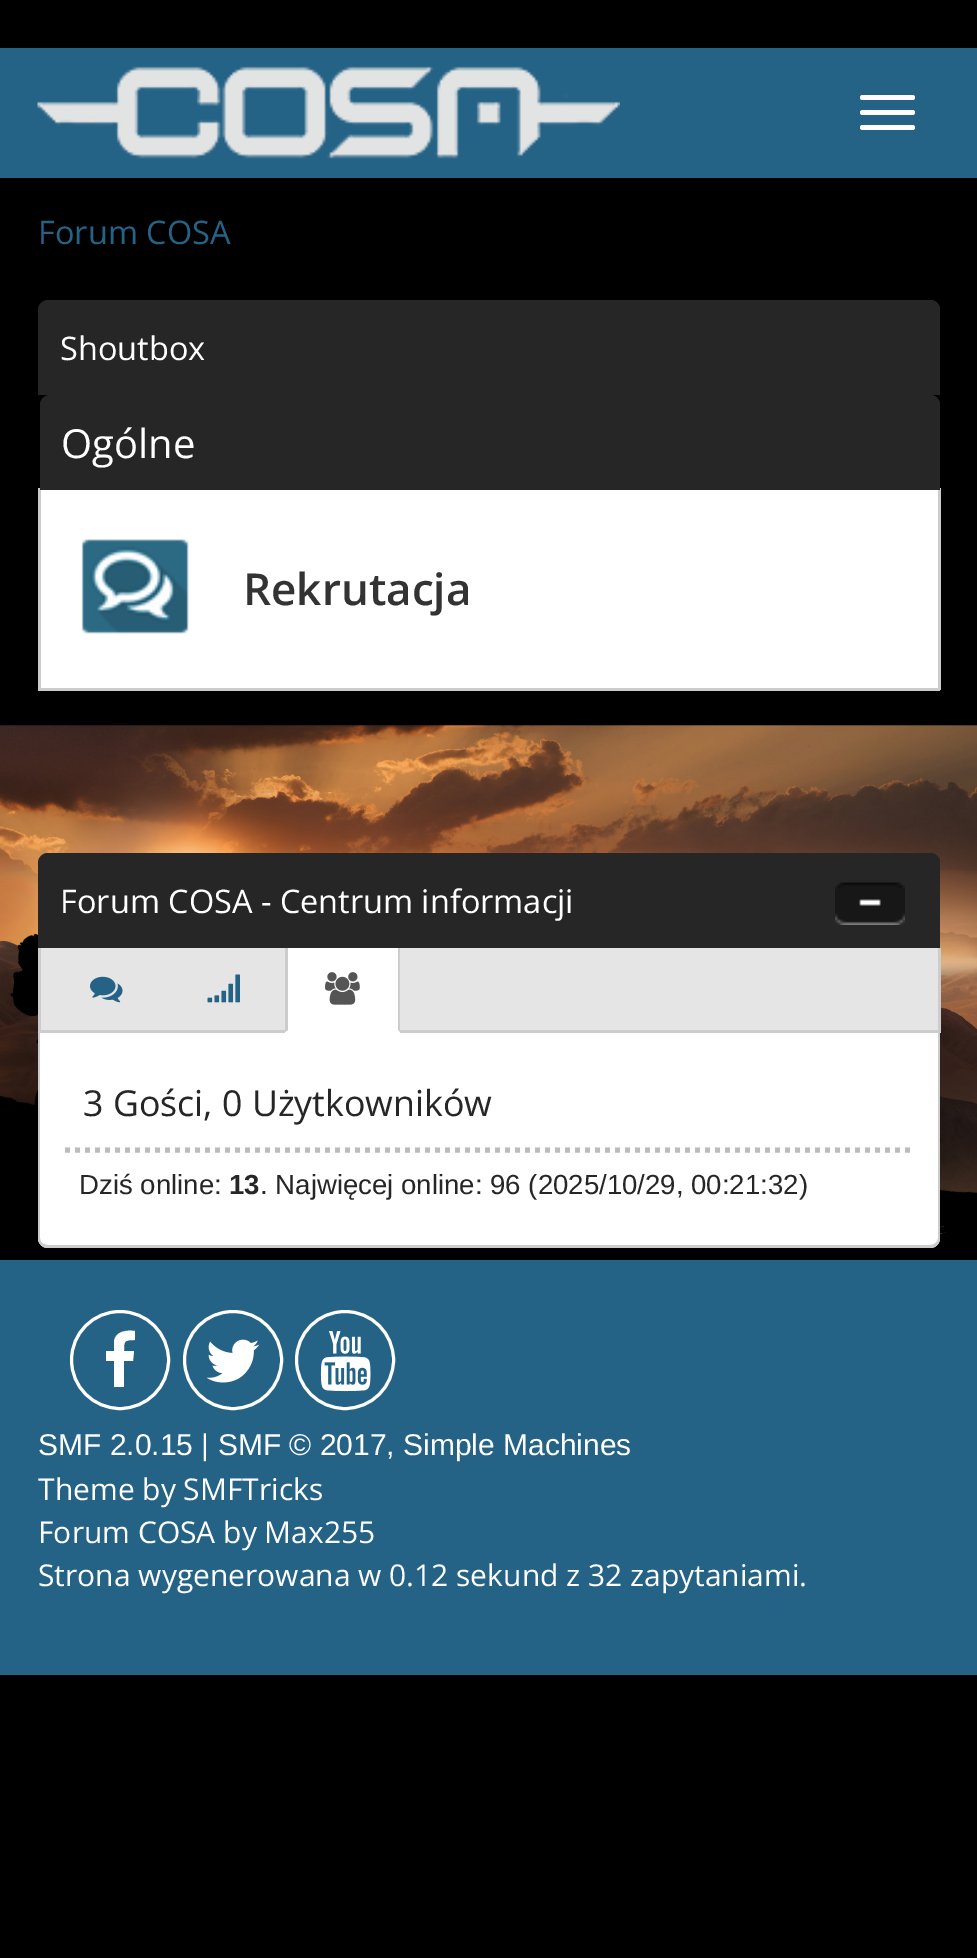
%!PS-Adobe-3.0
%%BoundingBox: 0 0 977 1958
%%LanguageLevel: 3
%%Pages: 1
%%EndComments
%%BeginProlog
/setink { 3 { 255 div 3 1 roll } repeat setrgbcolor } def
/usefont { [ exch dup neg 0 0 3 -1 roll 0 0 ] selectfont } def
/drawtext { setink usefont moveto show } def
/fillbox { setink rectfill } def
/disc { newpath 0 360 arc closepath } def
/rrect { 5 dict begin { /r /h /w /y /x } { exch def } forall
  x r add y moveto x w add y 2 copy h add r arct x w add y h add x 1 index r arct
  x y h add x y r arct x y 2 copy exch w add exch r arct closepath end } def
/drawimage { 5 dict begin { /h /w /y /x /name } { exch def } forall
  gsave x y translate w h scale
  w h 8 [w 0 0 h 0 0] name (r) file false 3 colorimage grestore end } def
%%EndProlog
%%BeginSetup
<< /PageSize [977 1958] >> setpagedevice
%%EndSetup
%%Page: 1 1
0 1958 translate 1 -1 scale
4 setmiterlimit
0 0 977 1958 0 0 0 fillbox
(assets/img1.rgb) 0 725 977 512 drawimage
0 48 977 130 37 99 134 fillbox
(assets/img2.rgb) 37 66 583 93 drawimage
255 255 255 setink
860 95 55 5 2.5 rrect fill
860 110 55 5 2.5 rrect fill
860 125 55 5 2.5 rrect fill
(Forum COSA) 38 244 /OpenSans-Regular 32.5 37 99 134 drawtext
38 38 38 setink
48 300 moveto 930 300 lineto 935.5 300 940 304.5 940 310 curveto 940 395 lineto 38 395 lineto 38 310 lineto 38 304.5 42.5 300 48 300 curveto closepath fill
60 300 moveto 930 300 lineto 935.5 300 940 304.5 940 310 curveto 940 395 lineto 60 395 lineto closepath fill
(Shoutbox) 60 360 /OpenSans-Regular 32.5 255 255 255 drawtext
938 488 3 202 204 204 204 fillbox
38 688 902 3 204 204 204 fillbox
38 488 3 202 204 204 204 fillbox
38 38 38 setink
50 395 moveto 930 395 lineto 935.5 395 940 399.5 940 405 curveto 940 490 lineto 40 490 lineto 40 405 lineto 40 399.5 44.5 395 50 395 curveto closepath fill
63 395 moveto 930 395 lineto 935.5 395 940 399.5 940 405 curveto 940 490 lineto 63 490 lineto closepath fill
(Ogólne) 61 458 /OpenSans-Regular 40 255 255 255 drawtext
41 490 897 198 255 255 255 fillbox
(assets/img3.rgb) 81 539 108 95 drawimage
(Rekrutacja) 243 605 /OpenSans-SemiBold 44 51 51 51 drawtext
38 38 38 setink
48 853 moveto 930 853 lineto 935.5 853 940 857.5 940 863 curveto 940 948 lineto 38 948 lineto 38 863 lineto 38 857.5 42.5 853 48 853 curveto closepath fill
60 853 moveto 930 853 lineto 935.5 853 940 857.5 940 863 curveto 940 948 lineto 60 948 lineto closepath fill
(Forum COSA - Centrum informacji) 60 913 /OpenSans-Regular 32.5 255 255 255 drawtext
(assets/img4.rgb) 835 882 70 43 drawimage
41 948 897 82 229 229 229 fillbox
938 948 3 85 204 204 204 fillbox
38 1030 902 3 204 204 204 fillbox
38 948 3 85 204 204 204 fillbox
(assets/img5.rgb) 90 976 33 27 drawimage
(assets/img6.rgb) 207 974 33 29 drawimage
255 255 255 setink
38 1033 moveto 940 1033 lineto 940 1238 lineto 940 1243.5 935.5 1248 930 1248 curveto 48 1248 lineto 42.5 1248 38 1243.5 38 1238 curveto closepath fill
204 204 204 setink
38 1032 moveto 940 1032 lineto 940 1238 lineto 940 1243 936 1248 930 1248 curveto 48 1248 lineto 42 1248 38 1243 38 1238 curveto closepath 40 1032 moveto 938 1032 lineto 938 1238 lineto 938 1242 934 1245 930 1245 curveto 48 1245 lineto 43 1245 40 1242 40 1238 curveto closepath eofill
285 948 115 85 255 255 255 fillbox
204 204 204 setink
400 948 moveto 400 1032 lineto 398 1030 lineto 398 948 lineto closepath fill
285 1032 moveto 285 948 lineto 288 948 lineto 288 1030 lineto closepath fill
(assets/img7.rgb) 325 972 35 33 drawimage
(3 Gości, 0 Użytkowników) 83 1116 /OpenSans-Regular 35.75 38 38 38 drawtext
187 187 187 setink
5 setlinewidth
[5 5] 0 setdash
65 1150 moveto 912.5 1150 lineto stroke
(Dziś online:) 79 1194 /LiberationSans-Regular 27.6 38 38 38 drawtext
(13) 229 1194 /LiberationSans-Bold 27.6 38 38 38 drawtext
(. Najwięcej online: 96 \(2025/10/29, 00:21:32\)) 260 1194 /LiberationSans-Regular 27.6 38 38 38 drawtext
0 1260 977 415 37 99 134 fillbox
255 255 255 setink
3 setlinewidth
[] 0 setdash
120 1360 48.5 disc stroke
135 1331 moveto 135 1340 lineto 124 1340 124 1341 124 1351 curveto 134 1351 lineto 133 1361 lineto 124 1361 lineto 124 1387 lineto 114 1387 lineto 114 1361 lineto 106 1361 lineto 106 1351 lineto 114 1351 lineto 114 1341 lineto 116 1331 126 1330 135 1331 curveto closepath fill
233 1360 48.5 disc stroke
(assets/img8.rgb) 206 1339 54 44 drawimage
345 1360 48.5 disc stroke
(assets/img9.rgb) 320 1331 51 61 drawimage
(SMF 2.0.15 | SMF © 2017, Simple Machines) 38 1455 /LiberationSans-Regular 30 255 255 255 drawtext
(Theme by SMFTricks) 38 1500 /OpenSans-Regular 30 255 255 255 drawtext
(Forum COSA by Max255) 38 1543 /OpenSans-Regular 30 255 255 255 drawtext
(Strona wygenerowana w 0.12 sekund z 32 zapytaniami.) 38 1586 /OpenSans-Regular 30 255 255 255 drawtext
showpage
%%EOF
